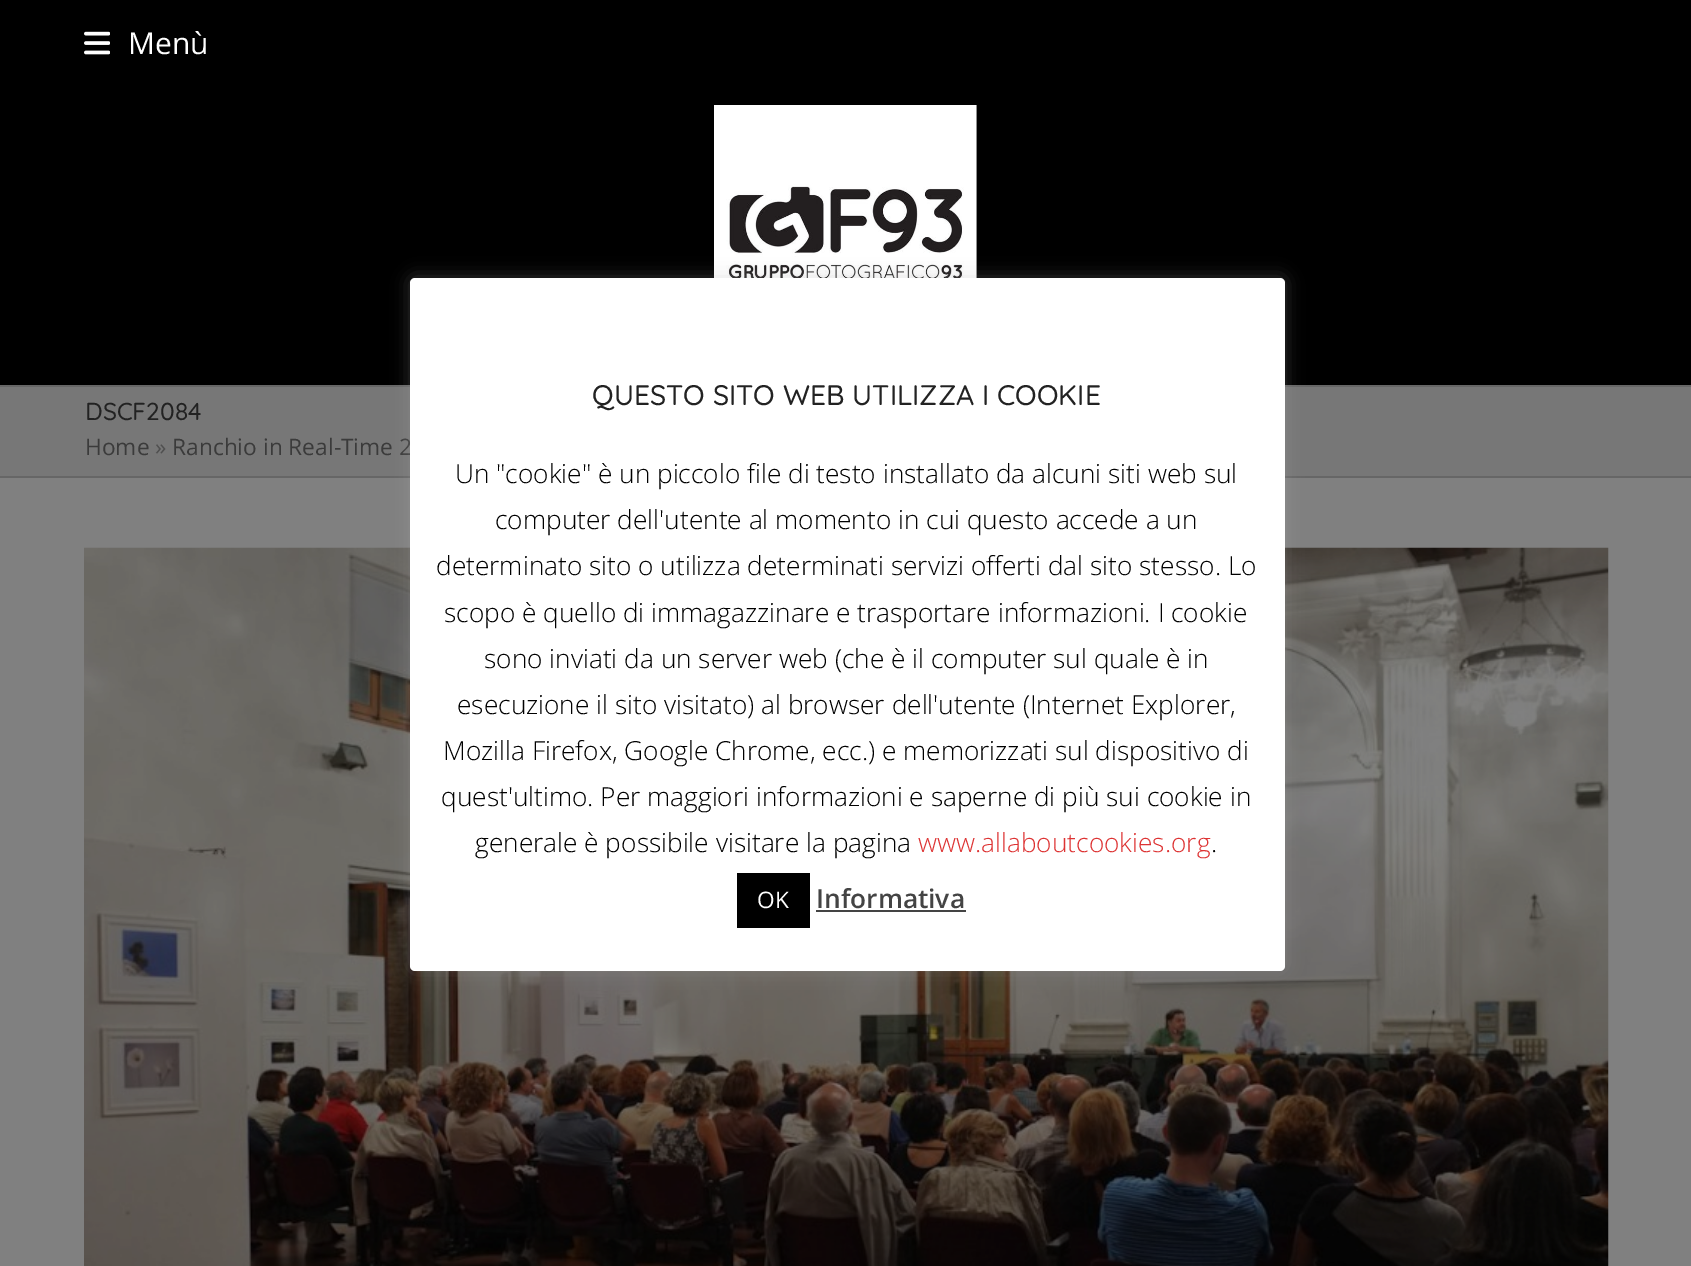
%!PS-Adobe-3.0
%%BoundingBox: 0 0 1691 1266
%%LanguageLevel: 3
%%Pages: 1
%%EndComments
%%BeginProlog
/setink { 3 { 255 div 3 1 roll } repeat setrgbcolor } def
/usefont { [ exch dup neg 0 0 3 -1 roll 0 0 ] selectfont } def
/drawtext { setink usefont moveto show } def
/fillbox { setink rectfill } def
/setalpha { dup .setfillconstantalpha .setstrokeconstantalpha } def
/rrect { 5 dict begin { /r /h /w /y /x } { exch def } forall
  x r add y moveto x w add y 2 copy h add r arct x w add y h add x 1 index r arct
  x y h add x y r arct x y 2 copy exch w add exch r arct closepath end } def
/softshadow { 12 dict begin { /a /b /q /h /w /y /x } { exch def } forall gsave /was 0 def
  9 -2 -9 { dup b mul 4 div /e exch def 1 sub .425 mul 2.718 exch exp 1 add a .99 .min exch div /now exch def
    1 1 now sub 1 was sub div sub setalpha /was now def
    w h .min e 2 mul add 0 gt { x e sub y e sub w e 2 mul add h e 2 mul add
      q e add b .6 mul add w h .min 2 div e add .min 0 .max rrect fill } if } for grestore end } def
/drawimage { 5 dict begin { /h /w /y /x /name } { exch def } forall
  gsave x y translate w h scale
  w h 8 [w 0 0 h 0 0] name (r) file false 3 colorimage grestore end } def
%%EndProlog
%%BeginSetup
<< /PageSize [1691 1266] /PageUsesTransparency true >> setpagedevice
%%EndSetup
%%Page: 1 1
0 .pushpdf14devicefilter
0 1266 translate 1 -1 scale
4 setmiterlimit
0 0 1691 1266 128 128 128 fillbox
0 0 1691 385 0 0 0 fillbox
(assets/img1.rgb) 84 31 26 24 drawimage
(Menù) 128 54 /OpenSans-Regular 30 255 255 255 drawtext
(assets/img2.rgb) 714 105 263 173 drawimage
0 387 1691 89 119 119 119 fillbox
0 385 1691 2 102 102 102 fillbox
0 476 1691 2 102 102 102 fillbox
(DSCF2084) 85 420 /Quicksand-Medium 24.5 34 34 34 drawtext
(Home) 85 455 /OpenSans-Regular 22.75 59 59 59 drawtext
(») 155 455 /OpenSans-Regular 22.75 79 79 79 drawtext
(Ranchio in Real-Time 2) 172 455 /OpenSans-Regular 22.75 59 59 59 drawtext
(assets/img3.rgb) 84 547 1525 719 drawimage
172 171 171 setink
410 277 875 693 5 9 0.3 softshadow
255 255 255 setink
410 278 875 693 5 rrect fill
(QUESTO SITO WEB UTILIZZA I COOKIE) 592 405 /Quicksand-Medium 28.25 34 34 34 drawtext
(Un "cookie" è un piccolo file di testo installato da alcuni siti web sul) 455 483 /OpenSans-Light 26.25 0 0 0 drawtext
(computer dell'utente al momento in cui questo accede a un) 495 529 /OpenSans-Light 26.25 0 0 0 drawtext
(determinato sito o utilizza determinati servizi offerti dal sito stesso. Lo) 436 575 /OpenSans-Light 26.25 0 0 0 drawtext
(scopo è quello di immagazzinare e trasportare informazioni. I cookie) 444 622 /OpenSans-Light 26.25 0 0 0 drawtext
(sono inviati da un server web \(che è il computer sul quale è in) 484 668 /OpenSans-Light 26.25 0 0 0 drawtext
(esecuzione il sito visitato\) al browser dell'utente \(Internet Explorer,) 457 714 /OpenSans-Light 26.25 0 0 0 drawtext
(Mozilla Firefox, Google Chrome, ecc.\) e memorizzati sul dispositivo di) 443 760 /OpenSans-Light 26.25 0 0 0 drawtext
(quest'ultimo. Per maggiori informazioni e saperne di più sui cookie in) 441 806 /OpenSans-Light 26.25 0 0 0 drawtext
(generale è possibile visitare la pagina) 475 852 /OpenSans-Light 26.25 0 0 0 drawtext
(www.allaboutcookies.org) 918 852 /OpenSans-Light 26.25 221 51 51 drawtext
(.) 1211 852 /OpenSans-Light 26.25 0 0 0 drawtext
737 873 73 55 0 0 0 fillbox
(OK) 757 908 /OpenSans-Regular 22.75 255 255 255 drawtext
(Informativa) 816 908 /OpenSans-SemiBold 26.25 68 68 68 drawtext
816 910 150 2 68 68 68 fillbox
.poppdf14devicefilter showpage
%%EOF
